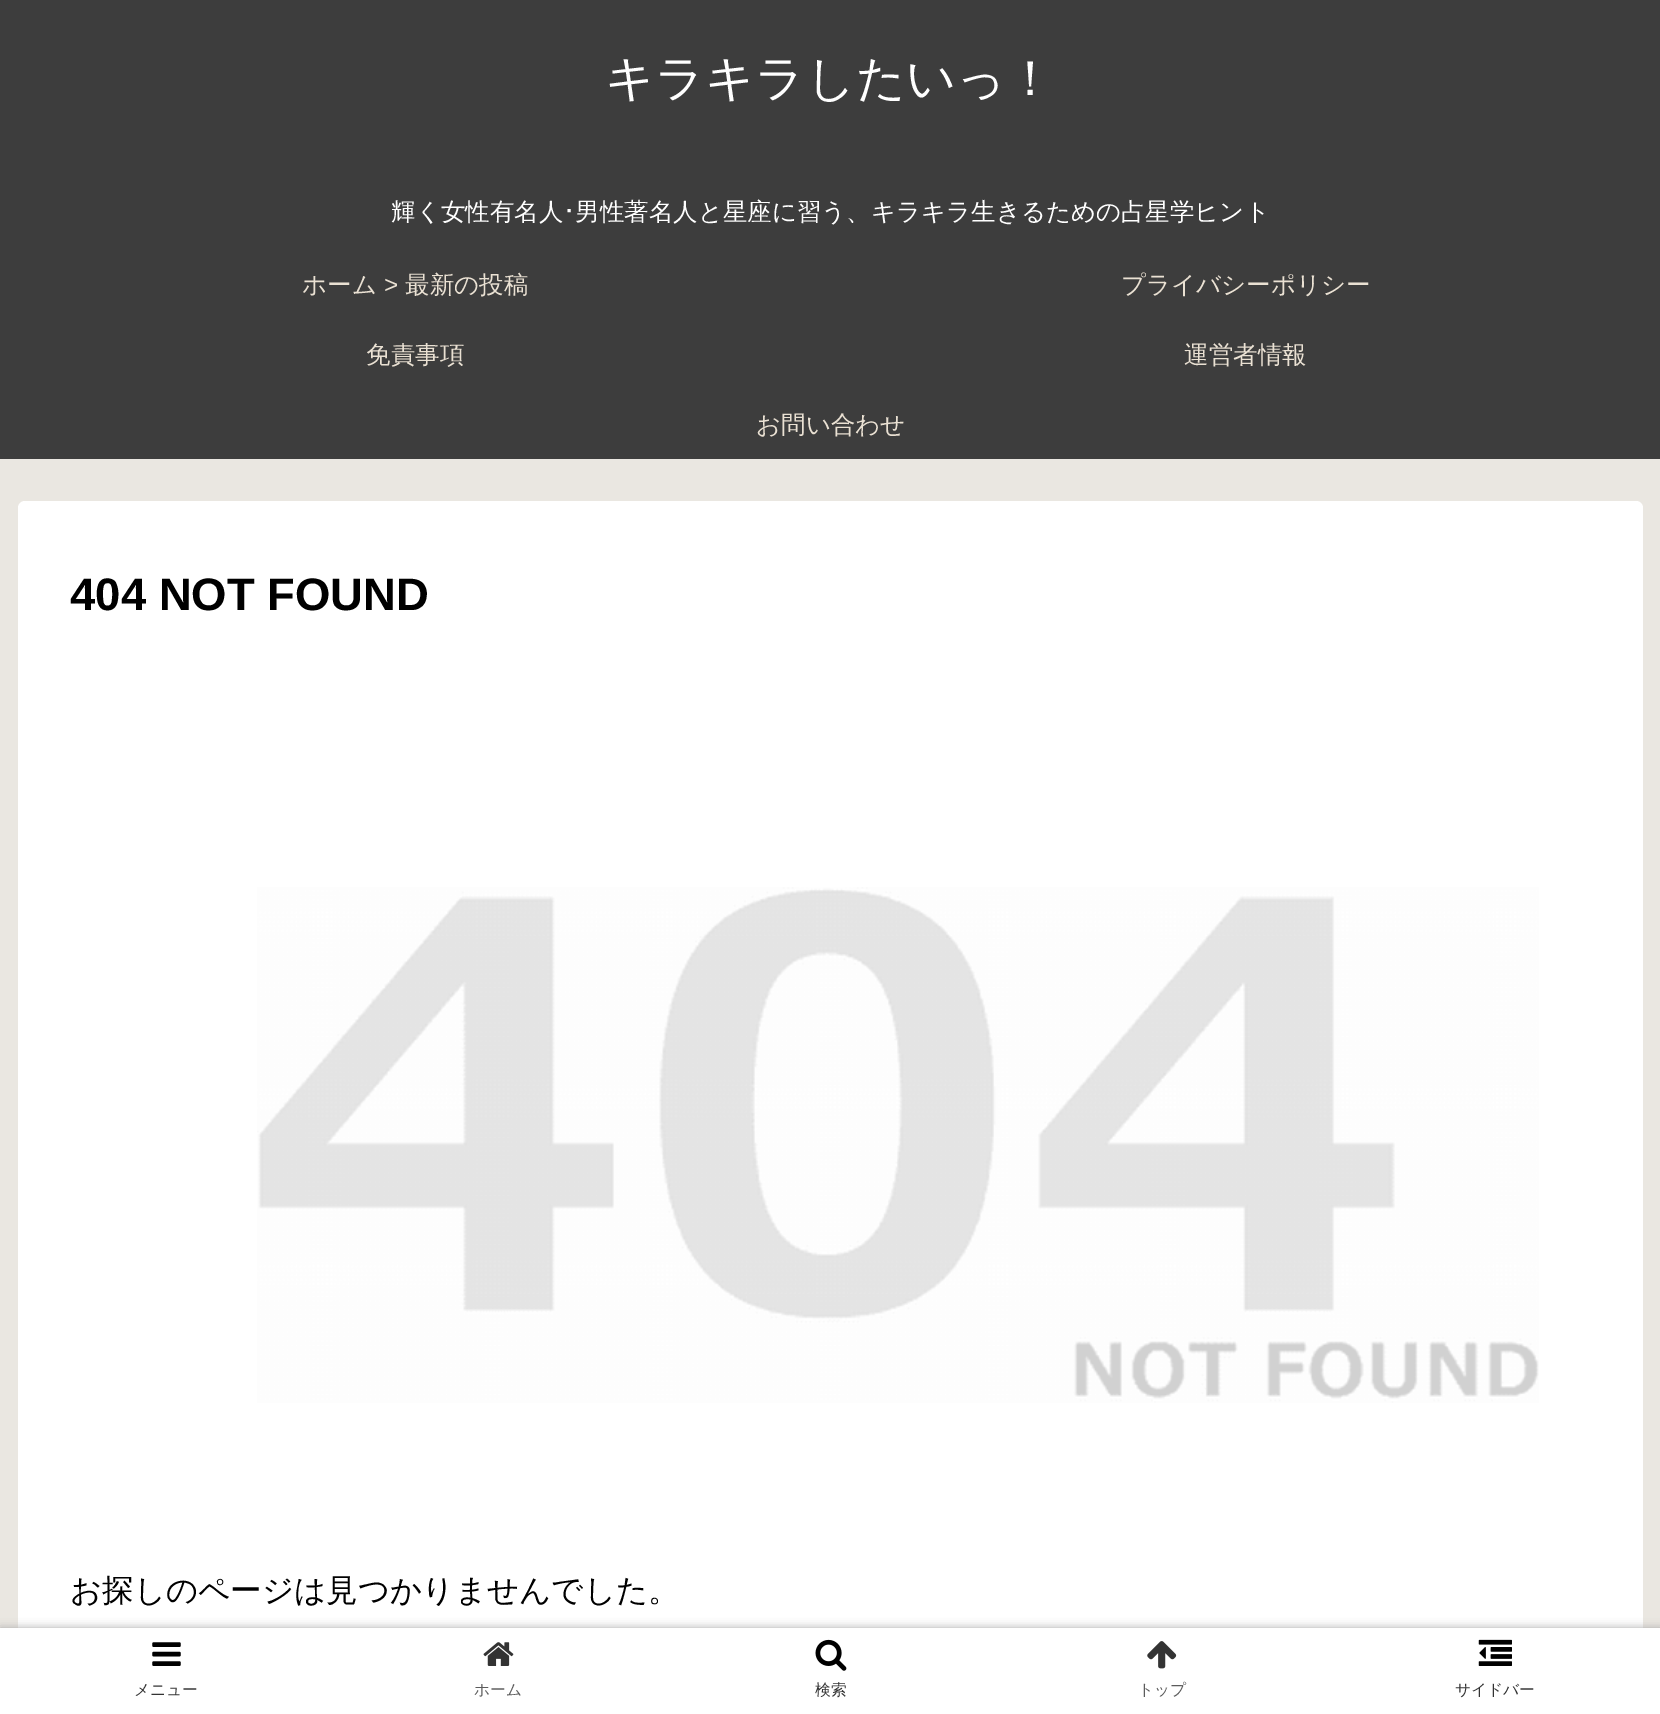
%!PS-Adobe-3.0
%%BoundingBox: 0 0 1660 1714
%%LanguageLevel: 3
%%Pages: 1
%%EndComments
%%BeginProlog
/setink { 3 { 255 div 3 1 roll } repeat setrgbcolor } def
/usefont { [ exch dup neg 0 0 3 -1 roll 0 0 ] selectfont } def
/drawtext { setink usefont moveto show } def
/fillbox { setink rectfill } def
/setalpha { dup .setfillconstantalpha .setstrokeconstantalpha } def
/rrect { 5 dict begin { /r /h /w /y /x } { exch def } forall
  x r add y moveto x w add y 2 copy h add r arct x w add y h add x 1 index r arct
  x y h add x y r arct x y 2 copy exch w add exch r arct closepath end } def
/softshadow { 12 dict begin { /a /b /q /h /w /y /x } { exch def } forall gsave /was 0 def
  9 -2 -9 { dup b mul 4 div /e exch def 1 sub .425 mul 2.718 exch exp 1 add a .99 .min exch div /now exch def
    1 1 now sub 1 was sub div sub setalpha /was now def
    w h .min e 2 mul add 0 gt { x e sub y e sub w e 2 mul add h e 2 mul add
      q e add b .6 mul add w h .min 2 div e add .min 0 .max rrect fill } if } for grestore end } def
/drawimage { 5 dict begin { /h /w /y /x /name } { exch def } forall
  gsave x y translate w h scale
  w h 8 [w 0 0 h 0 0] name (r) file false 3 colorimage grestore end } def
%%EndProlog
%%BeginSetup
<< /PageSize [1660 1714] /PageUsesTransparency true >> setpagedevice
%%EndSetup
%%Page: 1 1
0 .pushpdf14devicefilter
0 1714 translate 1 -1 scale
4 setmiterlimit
0 0 1660 1714 234 231 225 fillbox
0 0 1660 459 61 61 61 fillbox
(キラキラしたいっ！) 605 95 /WenQuanYiZenHei-Medium 49 255 255 255 drawtext
(輝く女性有名人) 391 220 /WenQuanYiZenHei-Medium 24.5 255 255 255 drawtext
(･) 563 220 /IPAPGothic-Regular 24.5 255 255 255 drawtext
(男性著名人と星座に習う、キラキラ生きるための占星学ヒント) 575 220 /WenQuanYiZenHei-Medium 24.5 255 255 255 drawtext
(ホーム) 302 293 /WenQuanYiZenHei-Medium 24.5 234 225 211 drawtext
(>) 384 293 /LiberationSans-Regular 24.5 234 225 211 drawtext
(最新の投稿) 405 293 /WenQuanYiZenHei-Medium 24.5 234 225 211 drawtext
(プライバシーポリシー) 1121 293 /WenQuanYiZenHei-Medium 24.5 234 225 211 drawtext
(免責事項) 366 363 /WenQuanYiZenHei-Medium 24.5 234 225 211 drawtext
(運営者情報) 1184 363 /WenQuanYiZenHei-Medium 24.5 234 225 211 drawtext
(お問い合わせ) 756 433 /WenQuanYiZenHei-Medium 24.5 234 225 211 drawtext
255 255 255 setink
18 501 1625 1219 7 rrect fill
(404 NOT FOUND) 70 610 /LiberationSans-Bold 45.5 0 0 0 drawtext
(assets/img1.rgb) 257 887 1282 516 drawimage
(お探しのページは見つかりませんでした。) 70 1601 /WenQuanYiZenHei-Medium 31.5 0 0 0 drawtext
169 169 169 setink
0 1628 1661 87 0 4.5 1 softshadow
0 1628 1660 86 255 255 255 fillbox
(assets/img2.rgb) 152 1642 29 24 drawimage
(メニュー) 134 1695 /WenQuanYiZenHei-Medium 15.75 51 51 51 drawtext
(assets/img3.rgb) 483 1642 31 24 drawimage
(ホーム) 474 1695 /WenQuanYiZenHei-Medium 15.75 92 92 92 drawtext
(assets/img4.rgb) 815 1639 32 32 drawimage
(検索) 815 1695 /WenQuanYiZenHei-Medium 15.75 51 51 51 drawtext
(assets/img5.rgb) 1147 1641 30 28 drawimage
(トップ) 1138 1695 /WenQuanYiZenHei-Medium 15.75 92 92 92 drawtext
(assets/img6.rgb) 1478 1639 34 27 drawimage
(サイドバー) 1455 1695 /WenQuanYiZenHei-Medium 15.75 51 51 51 drawtext
.poppdf14devicefilter showpage
%%EOF
